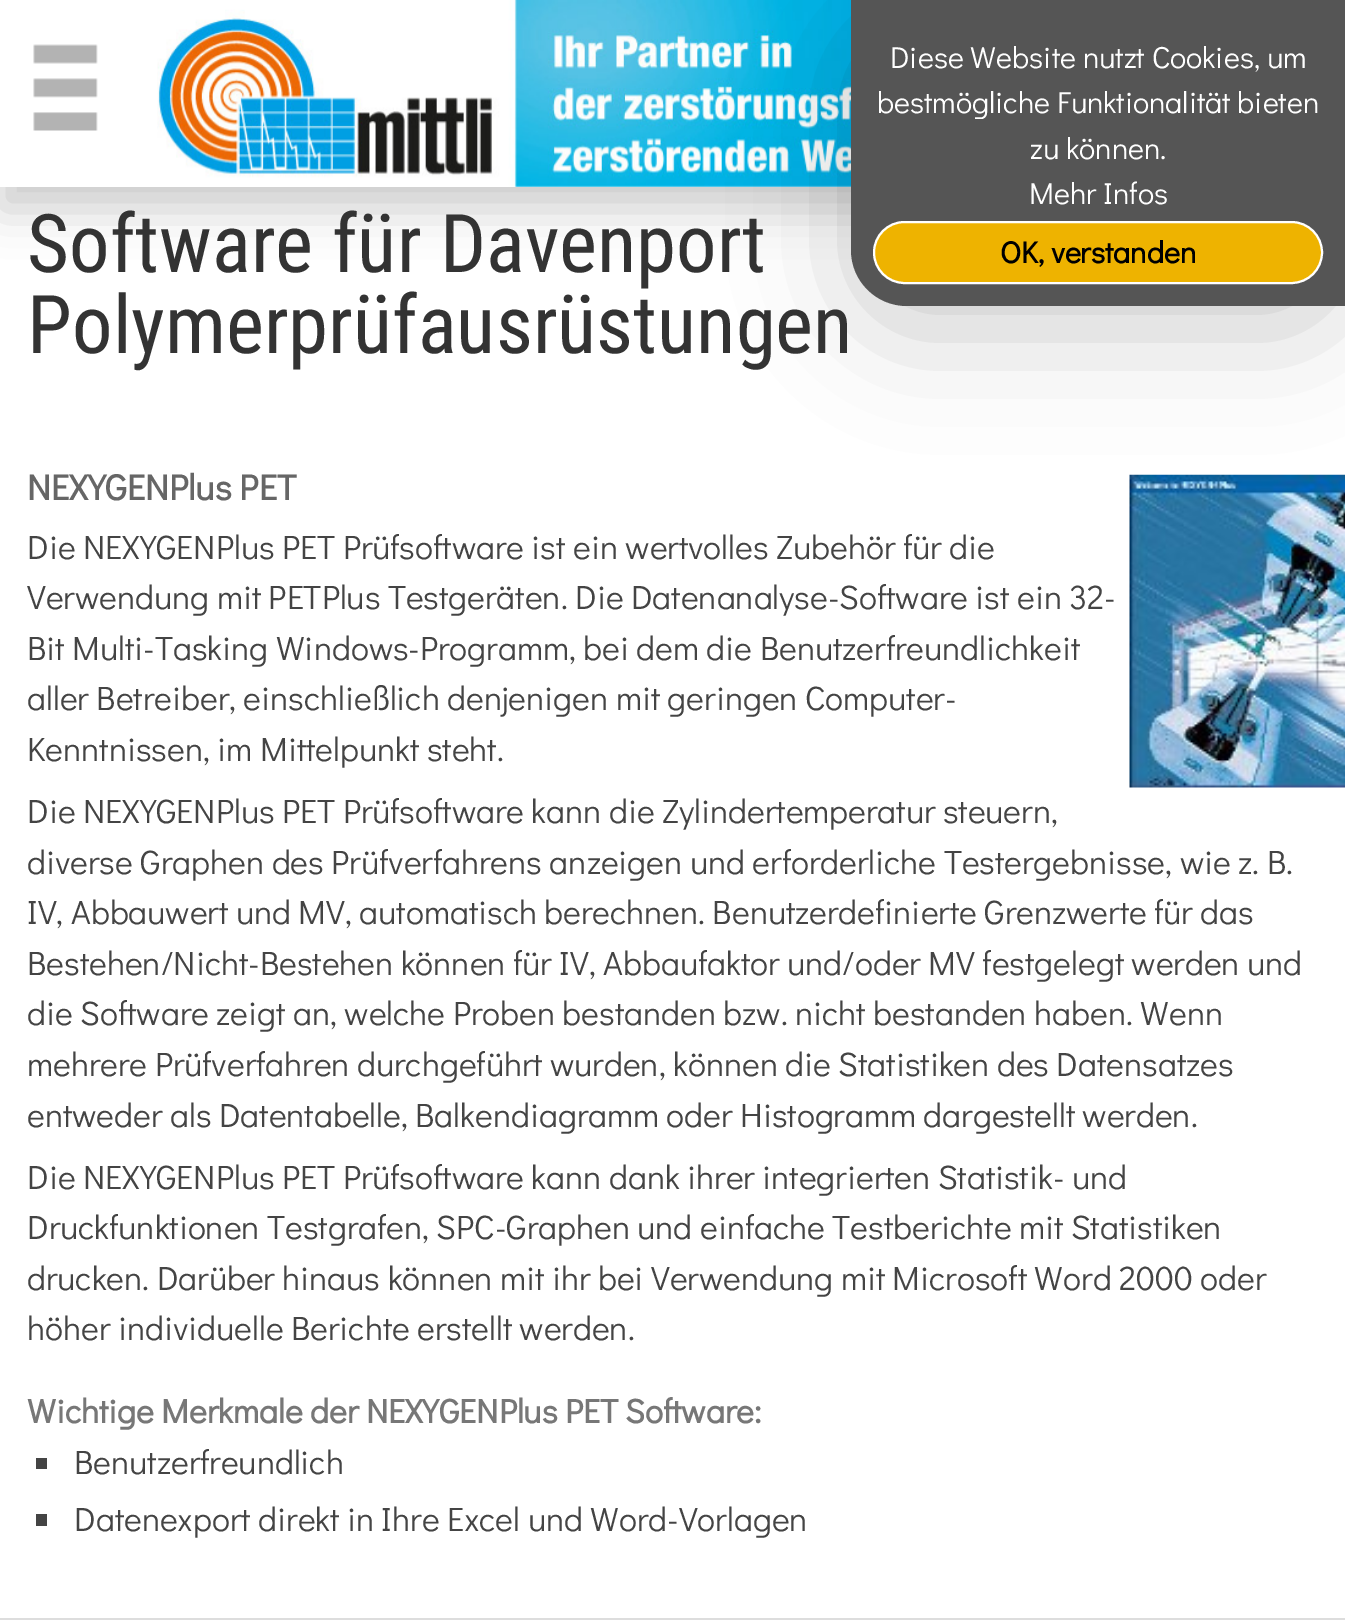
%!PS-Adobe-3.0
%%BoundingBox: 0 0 1345 1623
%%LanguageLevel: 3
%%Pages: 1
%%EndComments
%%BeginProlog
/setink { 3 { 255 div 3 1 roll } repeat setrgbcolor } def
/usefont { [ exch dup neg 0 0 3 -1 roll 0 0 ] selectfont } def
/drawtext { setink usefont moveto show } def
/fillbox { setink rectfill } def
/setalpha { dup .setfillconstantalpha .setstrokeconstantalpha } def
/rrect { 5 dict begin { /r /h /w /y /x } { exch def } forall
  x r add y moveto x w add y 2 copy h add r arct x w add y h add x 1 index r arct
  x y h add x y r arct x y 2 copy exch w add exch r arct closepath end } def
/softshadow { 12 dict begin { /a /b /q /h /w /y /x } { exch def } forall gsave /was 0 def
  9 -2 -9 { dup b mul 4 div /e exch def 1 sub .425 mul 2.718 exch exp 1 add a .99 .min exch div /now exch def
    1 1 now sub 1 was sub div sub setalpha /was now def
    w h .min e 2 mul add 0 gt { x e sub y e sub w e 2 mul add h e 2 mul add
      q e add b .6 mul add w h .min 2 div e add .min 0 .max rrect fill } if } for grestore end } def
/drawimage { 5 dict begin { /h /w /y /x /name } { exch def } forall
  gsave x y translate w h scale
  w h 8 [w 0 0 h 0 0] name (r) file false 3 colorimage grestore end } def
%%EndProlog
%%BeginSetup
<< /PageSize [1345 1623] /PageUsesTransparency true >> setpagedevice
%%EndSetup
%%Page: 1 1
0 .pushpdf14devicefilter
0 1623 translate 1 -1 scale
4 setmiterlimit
0 0 1345 1623 255 255 255 fillbox
0 0 0 setink
0 23 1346 186 0 22.5 0.2 softshadow
0 0 851 187 255 255 255 fillbox
(assets/img1.rgb) 157 0 694 187 drawimage
(assets/img2.rgb) 33 44 65 87 drawimage
(assets/img3.rgb) 1129 474 216 314 drawimage
0 0 0 setink
851 23 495 306 56 56 0.2 softshadow
85 85 85 setink
851 0 moveto 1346 0 lineto 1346 306 lineto 907 306 lineto 876 306 851 281 851 250 curveto closepath fill
(Diese Website nutzt Cookies, um) 890 68 /DidactGothic-Regular 30.4 255 255 255 drawtext
(bestmögliche Funktionalität bieten) 877 113 /DidactGothic-Regular 30.4 255 255 255 drawtext
(zu können.) 1030 159 /DidactGothic-Regular 30.4 255 255 255 drawtext
(Mehr Infos) 1029 204 /DidactGothic-Regular 30.4 255 255 255 drawtext
238 179 0 setink
874 222 448 61 30.5 rrect gsave fill grestore
255 255 255 setink
2 setlinewidth
stroke
(OK, verstanden) 1000 263 /DidactGothic-Bold 30.4 0 0 0 drawtext
(Software für Davenport) 27 272 /RobotoCondensed-Regular 81 51 51 51 drawtext
(Polymerprüfausrüstungen) 27 353 /RobotoCondensed-Regular 81 51 51 51 drawtext
(NEXYGENPlus PET) 27 500 /DidactGothic-Bold 36 102 102 102 drawtext
(Die NEXYGENPlus PET Prüfsoftware ist ein wertvolles Zubehör für die) 27 559 /DidactGothic-Regular 33.75 68 68 68 drawtext
(Verwendung mit PETPlus Testgeräten. Die Datenanalyse-Software ist ein 32-) 27 609 /DidactGothic-Regular 33.75 68 68 68 drawtext
(Bit Multi-Tasking Windows-Programm, bei dem die Benutzerfreundlichkeit) 27 660 /DidactGothic-Regular 33.75 68 68 68 drawtext
(aller Betreiber, einschließlich denjenigen mit geringen Computer-) 27 710 /DidactGothic-Regular 33.75 68 68 68 drawtext
(Kenntnissen, im Mittelpunkt steht.) 27 761 /DidactGothic-Regular 33.75 68 68 68 drawtext
(Die NEXYGENPlus PET Prüfsoftware kann die Zylindertemperatur steuern,) 27 823 /DidactGothic-Regular 33.75 68 68 68 drawtext
(diverse Graphen des Prüfverfahrens anzeigen und erforderliche Testergebnisse, wie z. B.) 27 874 /DidactGothic-Regular 33.75 68 68 68 drawtext
(IV, Abbauwert und MV, automatisch berechnen. Benutzerdefinierte Grenzwerte für das) 27 924 /DidactGothic-Regular 33.75 68 68 68 drawtext
(Bestehen/Nicht-Bestehen können für IV, Abbaufaktor und/oder MV festgelegt werden und) 27 975 /DidactGothic-Regular 33.75 68 68 68 drawtext
(die Software zeigt an, welche Proben bestanden bzw. nicht bestanden haben. Wenn) 27 1025 /DidactGothic-Regular 33.75 68 68 68 drawtext
(mehrere Prüfverfahren durchgeführt wurden, können die Statistiken des Datensatzes) 27 1076 /DidactGothic-Regular 33.75 68 68 68 drawtext
(entweder als Datentabelle, Balkendiagramm oder Histogramm dargestellt werden.) 27 1127 /DidactGothic-Regular 33.75 68 68 68 drawtext
(Die NEXYGENPlus PET Prüfsoftware kann dank ihrer integrierten Statistik- und) 27 1189 /DidactGothic-Regular 33.75 68 68 68 drawtext
(Druckfunktionen Testgrafen, SPC-Graphen und einfache Testberichte mit Statistiken) 27 1239 /DidactGothic-Regular 33.75 68 68 68 drawtext
(drucken. Darüber hinaus können mit ihr bei Verwendung mit Microsoft Word 2000 oder) 27 1290 /DidactGothic-Regular 33.75 68 68 68 drawtext
(höher individuelle Berichte erstellt werden.) 27 1340 /DidactGothic-Regular 33.75 68 68 68 drawtext
(Wichtige Merkmale der NEXYGENPlus PET Software:) 27 1423 /DidactGothic-Bold 33.75 119 119 119 drawtext
36 1458 11 11 68 68 68 fillbox
(Benutzerfreundlich) 74 1474 /DidactGothic-Regular 33.75 68 68 68 drawtext
36 1514 11 12 68 68 68 fillbox
(Datenexport direkt in Ihre Excel und Word-Vorlagen) 74 1531 /DidactGothic-Regular 33.75 68 68 68 drawtext
0 1618 1345 2 221 221 221 fillbox
.poppdf14devicefilter showpage
%%EOF
